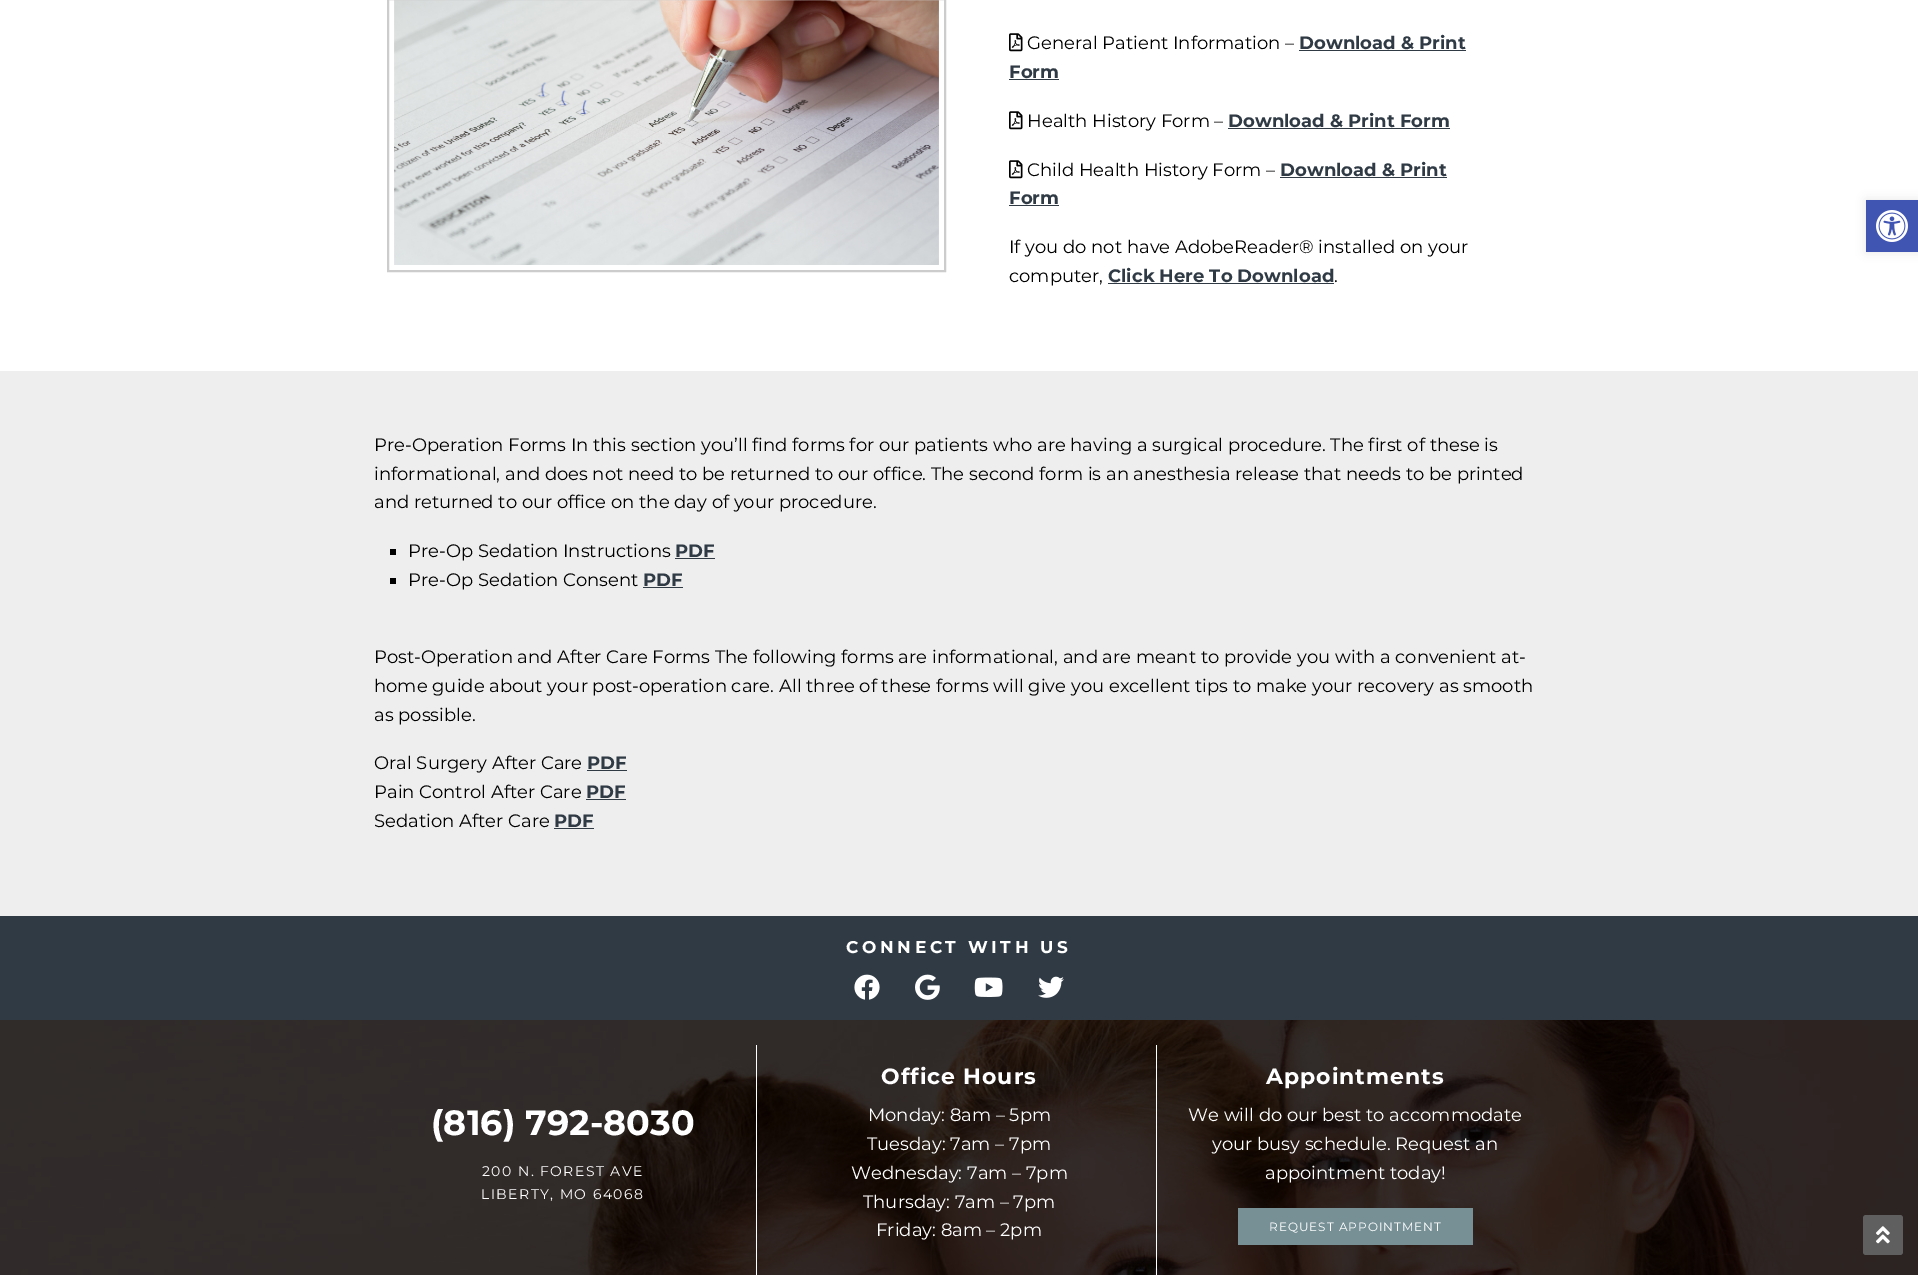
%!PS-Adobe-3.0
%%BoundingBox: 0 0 1918 1275
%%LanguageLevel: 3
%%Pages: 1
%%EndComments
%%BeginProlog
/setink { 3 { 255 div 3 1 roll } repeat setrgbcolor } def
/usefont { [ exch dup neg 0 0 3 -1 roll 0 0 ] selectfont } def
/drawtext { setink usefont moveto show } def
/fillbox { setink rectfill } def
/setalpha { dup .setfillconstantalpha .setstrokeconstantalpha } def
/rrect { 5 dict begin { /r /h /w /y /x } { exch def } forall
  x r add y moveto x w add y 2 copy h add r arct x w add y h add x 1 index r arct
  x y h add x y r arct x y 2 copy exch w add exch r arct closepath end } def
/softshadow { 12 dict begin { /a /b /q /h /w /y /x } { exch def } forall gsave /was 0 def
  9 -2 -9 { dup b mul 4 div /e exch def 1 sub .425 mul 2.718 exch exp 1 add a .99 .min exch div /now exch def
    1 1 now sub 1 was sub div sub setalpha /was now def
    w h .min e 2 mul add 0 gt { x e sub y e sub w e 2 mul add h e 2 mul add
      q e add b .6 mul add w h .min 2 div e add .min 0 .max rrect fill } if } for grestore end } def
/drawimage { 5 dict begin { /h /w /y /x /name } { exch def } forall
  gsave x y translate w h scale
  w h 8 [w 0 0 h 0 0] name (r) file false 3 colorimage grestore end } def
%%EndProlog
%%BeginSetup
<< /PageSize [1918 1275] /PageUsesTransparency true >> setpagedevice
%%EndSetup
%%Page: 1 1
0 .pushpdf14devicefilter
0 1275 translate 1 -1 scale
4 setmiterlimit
0 0 1918 1275 255 255 255 fillbox
(assets/img1.rgb) 394 0 545 265 drawimage
204 204 204 setink
2 setlinewidth
388 -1 557 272 rectstroke
(assets/img2.rgb) 1009 33 14 19 drawimage
(General Patient Information –) 1027 49 /Montserrat-Regular 18 0 0 0 drawtext
(Download & Print) 1299 49 /Montserrat-Bold 18 47 58 68 drawtext
1299 50 167 1 47 58 68 fillbox
(Form) 1009 78 /Montserrat-Bold 18 47 58 68 drawtext
1009 79 50 1 47 58 68 fillbox
(assets/img2.rgb) 1009 111 14 19 drawimage
(Health History Form –) 1027 127 /Montserrat-Regular 18 0 0 0 drawtext
(Download & Print Form) 1228 127 /Montserrat-Bold 18 47 58 68 drawtext
1228 128 222 1 47 58 68 fillbox
(assets/img2.rgb) 1009 160 14 19 drawimage
(Child Health History Form –) 1027 176 /Montserrat-Regular 18 0 0 0 drawtext
(Download & Print) 1280 176 /Montserrat-Bold 18 47 58 68 drawtext
1280 177 167 1 47 58 68 fillbox
(Form) 1009 204 /Montserrat-Bold 18 47 58 68 drawtext
1009 205 50 1 47 58 68 fillbox
(If you do not have AdobeReader® installed on your) 1009 253 /Montserrat-Regular 18 0 0 0 drawtext
(computer,) 1009 282 /Montserrat-Regular 18 0 0 0 drawtext
(Click Here To Download) 1108 282 /Montserrat-Bold 18 47 58 68 drawtext
1108 283 226 1 47 58 68 fillbox
(.) 1334 282 /Montserrat-Regular 18 0 0 0 drawtext
0 371 1918 545 238 238 238 fillbox
(Pre-Operation Forms In this section you’ll find forms for our patients who are having a surgical procedure. The first of these is) 374 451 /Montserrat-Regular 18 0 0 0 drawtext
(informational, and does not need to be returned to our office. The second form is an anesthesia release that needs to be printed) 374 480 /Montserrat-Regular 18 0 0 0 drawtext
(and returned to our office on the day of your procedure.) 374 508 /Montserrat-Regular 18 0 0 0 drawtext
390 549 6 6 0 0 0 fillbox
(Pre-Op Sedation Instructions) 408 557 /Montserrat-Regular 18 0 0 0 drawtext
(PDF) 675 557 /Montserrat-Bold 18 47 58 68 drawtext
675 558 40 1 47 58 68 fillbox
390 578 6 6 0 0 0 fillbox
(Pre-Op Sedation Consent) 408 586 /Montserrat-Regular 18 0 0 0 drawtext
(PDF) 643 586 /Montserrat-Bold 18 47 58 68 drawtext
643 587 40 1 47 58 68 fillbox
(Post-Operation and After Care Forms The following forms are informational, and are meant to provide you with a convenient at-) 374 663 /Montserrat-Regular 18 0 0 0 drawtext
(home guide about your post-operation care. All three of these forms will give you excellent tips to make your recovery as smooth) 374 692 /Montserrat-Regular 18 0 0 0 drawtext
(as possible.) 374 721 /Montserrat-Regular 18 0 0 0 drawtext
(Oral Surgery After Care) 374 769 /Montserrat-Regular 18 0 0 0 drawtext
(PDF) 587 769 /Montserrat-Bold 18 47 58 68 drawtext
587 770 40 1 47 58 68 fillbox
(Pain Control After Care) 374 798 /Montserrat-Regular 18 0 0 0 drawtext
(PDF) 586 798 /Montserrat-Bold 18 47 58 68 drawtext
586 799 40 1 47 58 68 fillbox
(Sedation After Care) 374 827 /Montserrat-Regular 18 0 0 0 drawtext
(PDF) 554 827 /Montserrat-Bold 18 47 58 68 drawtext
554 828 40 1 47 58 68 fillbox
0 916 1918 104 47 58 68 fillbox
/Montserrat-Bold 17 usefont
255 255 255 setink
846 953 moveto 3.6 0 (CONNECT WITH US) ashow
(assets/img3.rgb) 854 974 26 26 drawimage
(assets/img4.rgb) 915 974 25 26 drawimage
(assets/img5.rgb) 974 977 29 20 drawimage
(assets/img6.rgb) 1038 976 26 22 drawimage
(assets/img7.rgb) 0 1020 1918 255 drawimage
(\(816\) 792-8030) 431 1135 /Montserrat-Bold 35 255 255 255 drawtext
/Montserrat-Regular 14 usefont
482 1176 moveto 1.4 0 (200 N. FOREST AVE) ashow
481 1199 moveto 1.4 0 (LIBERTY, MO 64068) ashow
756 1045 1 230 255 255 255 fillbox
/Montserrat-Bold 22 usefont
881 1084 moveto 1 0 (Office Hours) ashow
1156 1045 1 230 255 255 255 fillbox
(Monday: 8am – 5pm) 868 1121 /Montserrat-Regular 18 255 255 255 drawtext
(Tuesday: 7am – 7pm) 867 1150 /Montserrat-Regular 18 255 255 255 drawtext
(Wednesday: 7am – 7pm) 851 1179 /Montserrat-Regular 18 255 255 255 drawtext
(Thursday: 7am – 7pm) 863 1208 /Montserrat-Regular 18 255 255 255 drawtext
(Friday: 8am – 2pm) 876 1236 /Montserrat-Regular 18 255 255 255 drawtext
/Montserrat-Bold 22 usefont
1266 1084 moveto 1 0 (Appointments) ashow
(We will do our best to accommodate) 1188 1121 /Montserrat-Regular 18 255 255 255 drawtext
(your busy schedule. Request an) 1212 1150 /Montserrat-Regular 18 255 255 255 drawtext
(appointment today!) 1265 1179 /Montserrat-Regular 18 255 255 255 drawtext
1238 1208 235 37 118 144 149 fillbox
/Montserrat-Regular 12 usefont
255 255 255 setink
1269 1231 moveto 1 0 (REQUEST APPOINTMENT) ashow
0 0 0 setink
1866 200 52 52 0 5 0.1 softshadow
1866 200 52 52 64 84 178 fillbox
(assets/img8.rgb) 1876 210 32 32 drawimage
95 95 95 setink
1863 1215 40 40 3 rrect fill
(assets/img9.rgb) 1876 1226 14 18 drawimage
.poppdf14devicefilter showpage
%%EOF
